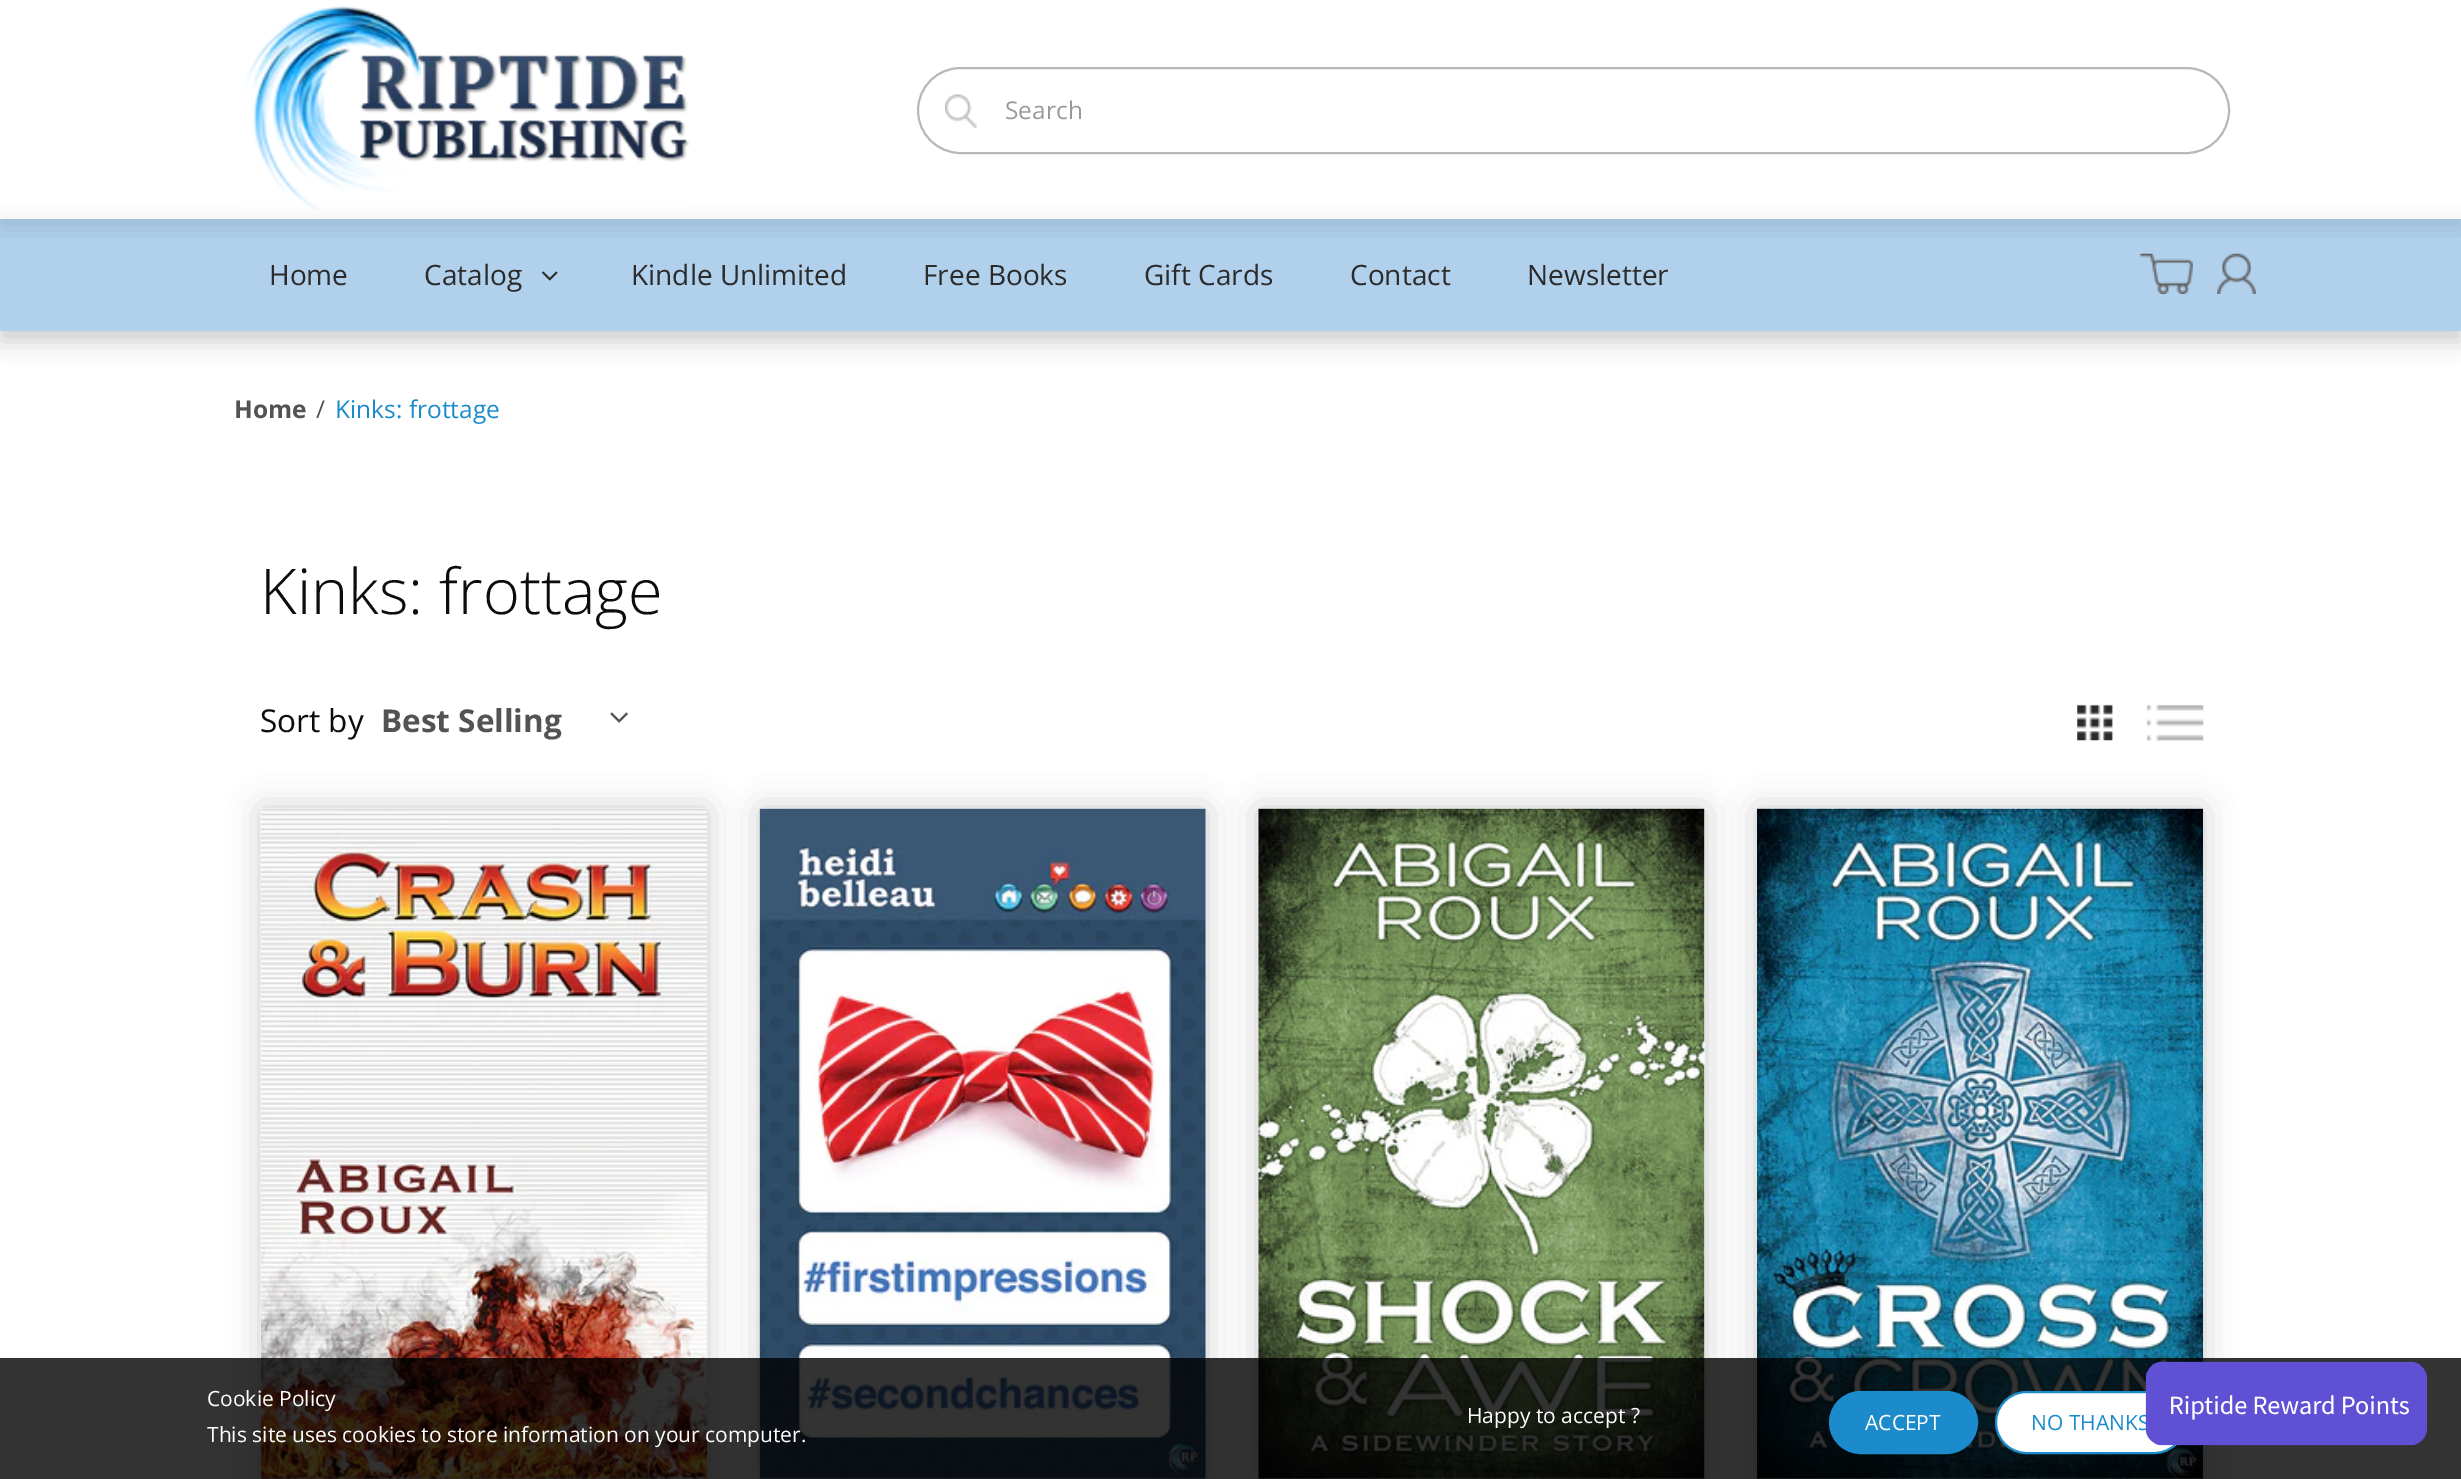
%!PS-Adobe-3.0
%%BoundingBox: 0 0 2461 1479
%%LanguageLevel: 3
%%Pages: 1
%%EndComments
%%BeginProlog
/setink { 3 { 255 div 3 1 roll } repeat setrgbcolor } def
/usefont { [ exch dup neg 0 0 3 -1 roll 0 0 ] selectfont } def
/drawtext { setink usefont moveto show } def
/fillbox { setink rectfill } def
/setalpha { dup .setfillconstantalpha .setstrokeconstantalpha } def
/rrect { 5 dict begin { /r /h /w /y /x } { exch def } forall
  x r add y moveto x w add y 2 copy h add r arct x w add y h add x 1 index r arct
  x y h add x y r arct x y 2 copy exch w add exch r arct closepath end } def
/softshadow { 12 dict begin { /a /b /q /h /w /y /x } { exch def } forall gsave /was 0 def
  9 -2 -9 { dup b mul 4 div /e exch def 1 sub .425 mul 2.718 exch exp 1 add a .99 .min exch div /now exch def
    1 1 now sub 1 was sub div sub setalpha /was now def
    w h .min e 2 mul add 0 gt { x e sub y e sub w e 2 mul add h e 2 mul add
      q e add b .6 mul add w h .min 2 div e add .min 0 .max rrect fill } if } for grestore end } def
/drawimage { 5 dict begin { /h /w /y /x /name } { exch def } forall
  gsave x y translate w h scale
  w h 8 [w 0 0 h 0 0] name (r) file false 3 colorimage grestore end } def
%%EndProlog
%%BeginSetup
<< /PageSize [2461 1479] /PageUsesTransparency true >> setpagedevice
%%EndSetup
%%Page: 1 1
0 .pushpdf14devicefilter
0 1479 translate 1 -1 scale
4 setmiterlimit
0 0 2461 1479 255 255 255 fillbox
0 0 0 setink
0 229 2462 112 0 11.5 0.2 softshadow
0 219 2461 112 176 208 236 fillbox
(assets/img4.rgb) 2140 253 53 41 drawimage
(assets/img5.rgb) 2217 253 39 41 drawimage
gsave
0 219 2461 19 rectclip
0 0 0 setink
0 11 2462 218 0 11.5 0.09 softshadow
grestore
(assets/img1.rgb) 243 6 447 209 drawimage
184 184 184 setink
2 setlinewidth
918 68 1311 85 42.5 rrect stroke
(assets/img2.rgb) 945 94 32 34 drawimage
(Search) 1005 119 /OpenSans-Regular 24.5 153 153 153 drawtext
(Home) 269 285 /OpenSans-Regular 28 43 43 43 drawtext
(Catalog) 424 285 /OpenSans-Regular 28 43 43 43 drawtext
(assets/img3.rgb) 542 271 16 10 drawimage
(Kindle Unlimited) 631 285 /OpenSans-Regular 28 43 43 43 drawtext
(Free Books) 923 285 /OpenSans-Regular 28 43 43 43 drawtext
(Gift Cards) 1144 285 /OpenSans-Regular 28 43 43 43 drawtext
(Contact) 1350 285 /OpenSans-Regular 28 43 43 43 drawtext
(Newsletter) 1527 285 /OpenSans-Regular 28 43 43 43 drawtext
(Home) 234 418 /OpenSans-Bold 24.5 83 83 83 drawtext
(/) 316 418 /OpenSans-Regular 24.5 83 83 83 drawtext
(Kinks: frottage) 335 418 /OpenSans-Regular 24.5 27 139 204 drawtext
(Kinks: frottage) 260 614 /OpenSans-Light 63 12 12 12 drawtext
(Sort by) 260 732 /OpenSans-Regular 31.5 12 12 12 drawtext
(Best Selling) 381 732 /OpenSans-Bold 31.5 83 83 83 drawtext
(assets/img6.rgb) 610 712 18 11 drawimage
(assets/img7.rgb) 2077 704 36 37 drawimage
(assets/img8.rgb) 2147 705 57 36 drawimage
0 0 0 setink
261 809 446 670 0 16 0.2 softshadow
(assets/img9.rgb) 260 808 447 671 drawimage
760 809 446 670 0 16 0.2 softshadow
(assets/img10.rgb) 759 808 447 671 drawimage
1258 809 447 670 0 16 0.2 softshadow
(assets/img11.rgb) 1258 808 447 671 drawimage
1757 809 446 670 0 16 0.2 softshadow
(assets/img12.rgb) 1757 808 447 671 drawimage
0.8 setalpha
0 1358 2461 121 0 0 0 fillbox
1 setalpha
(Cookie Policy) 207 1406 /OpenSans-Regular 21 255 255 255 drawtext
(Happy to accept ?) 1467 1423 /OpenSans-Regular 21 255 255 255 drawtext
27 139 204 setink
1830 1392 147 61 30.5 rrect gsave fill grestore
stroke
(ACCEPT) 1865 1430 /OpenSans-Regular 21 255 255 255 drawtext
1996 1392 189 61 30.5 rrect gsave fill grestore
27 139 204 setink
stroke
(NO THANKS) 2031 1430 /OpenSans-Regular 21 27 139 204 drawtext
(This site uses cookies to store information on your computer.) 207 1442 /OpenSans-Regular 21 255 255 255 drawtext
(assets/img13.rgb) 2145 1361 283 85 drawimage
.poppdf14devicefilter showpage
%%EOF
